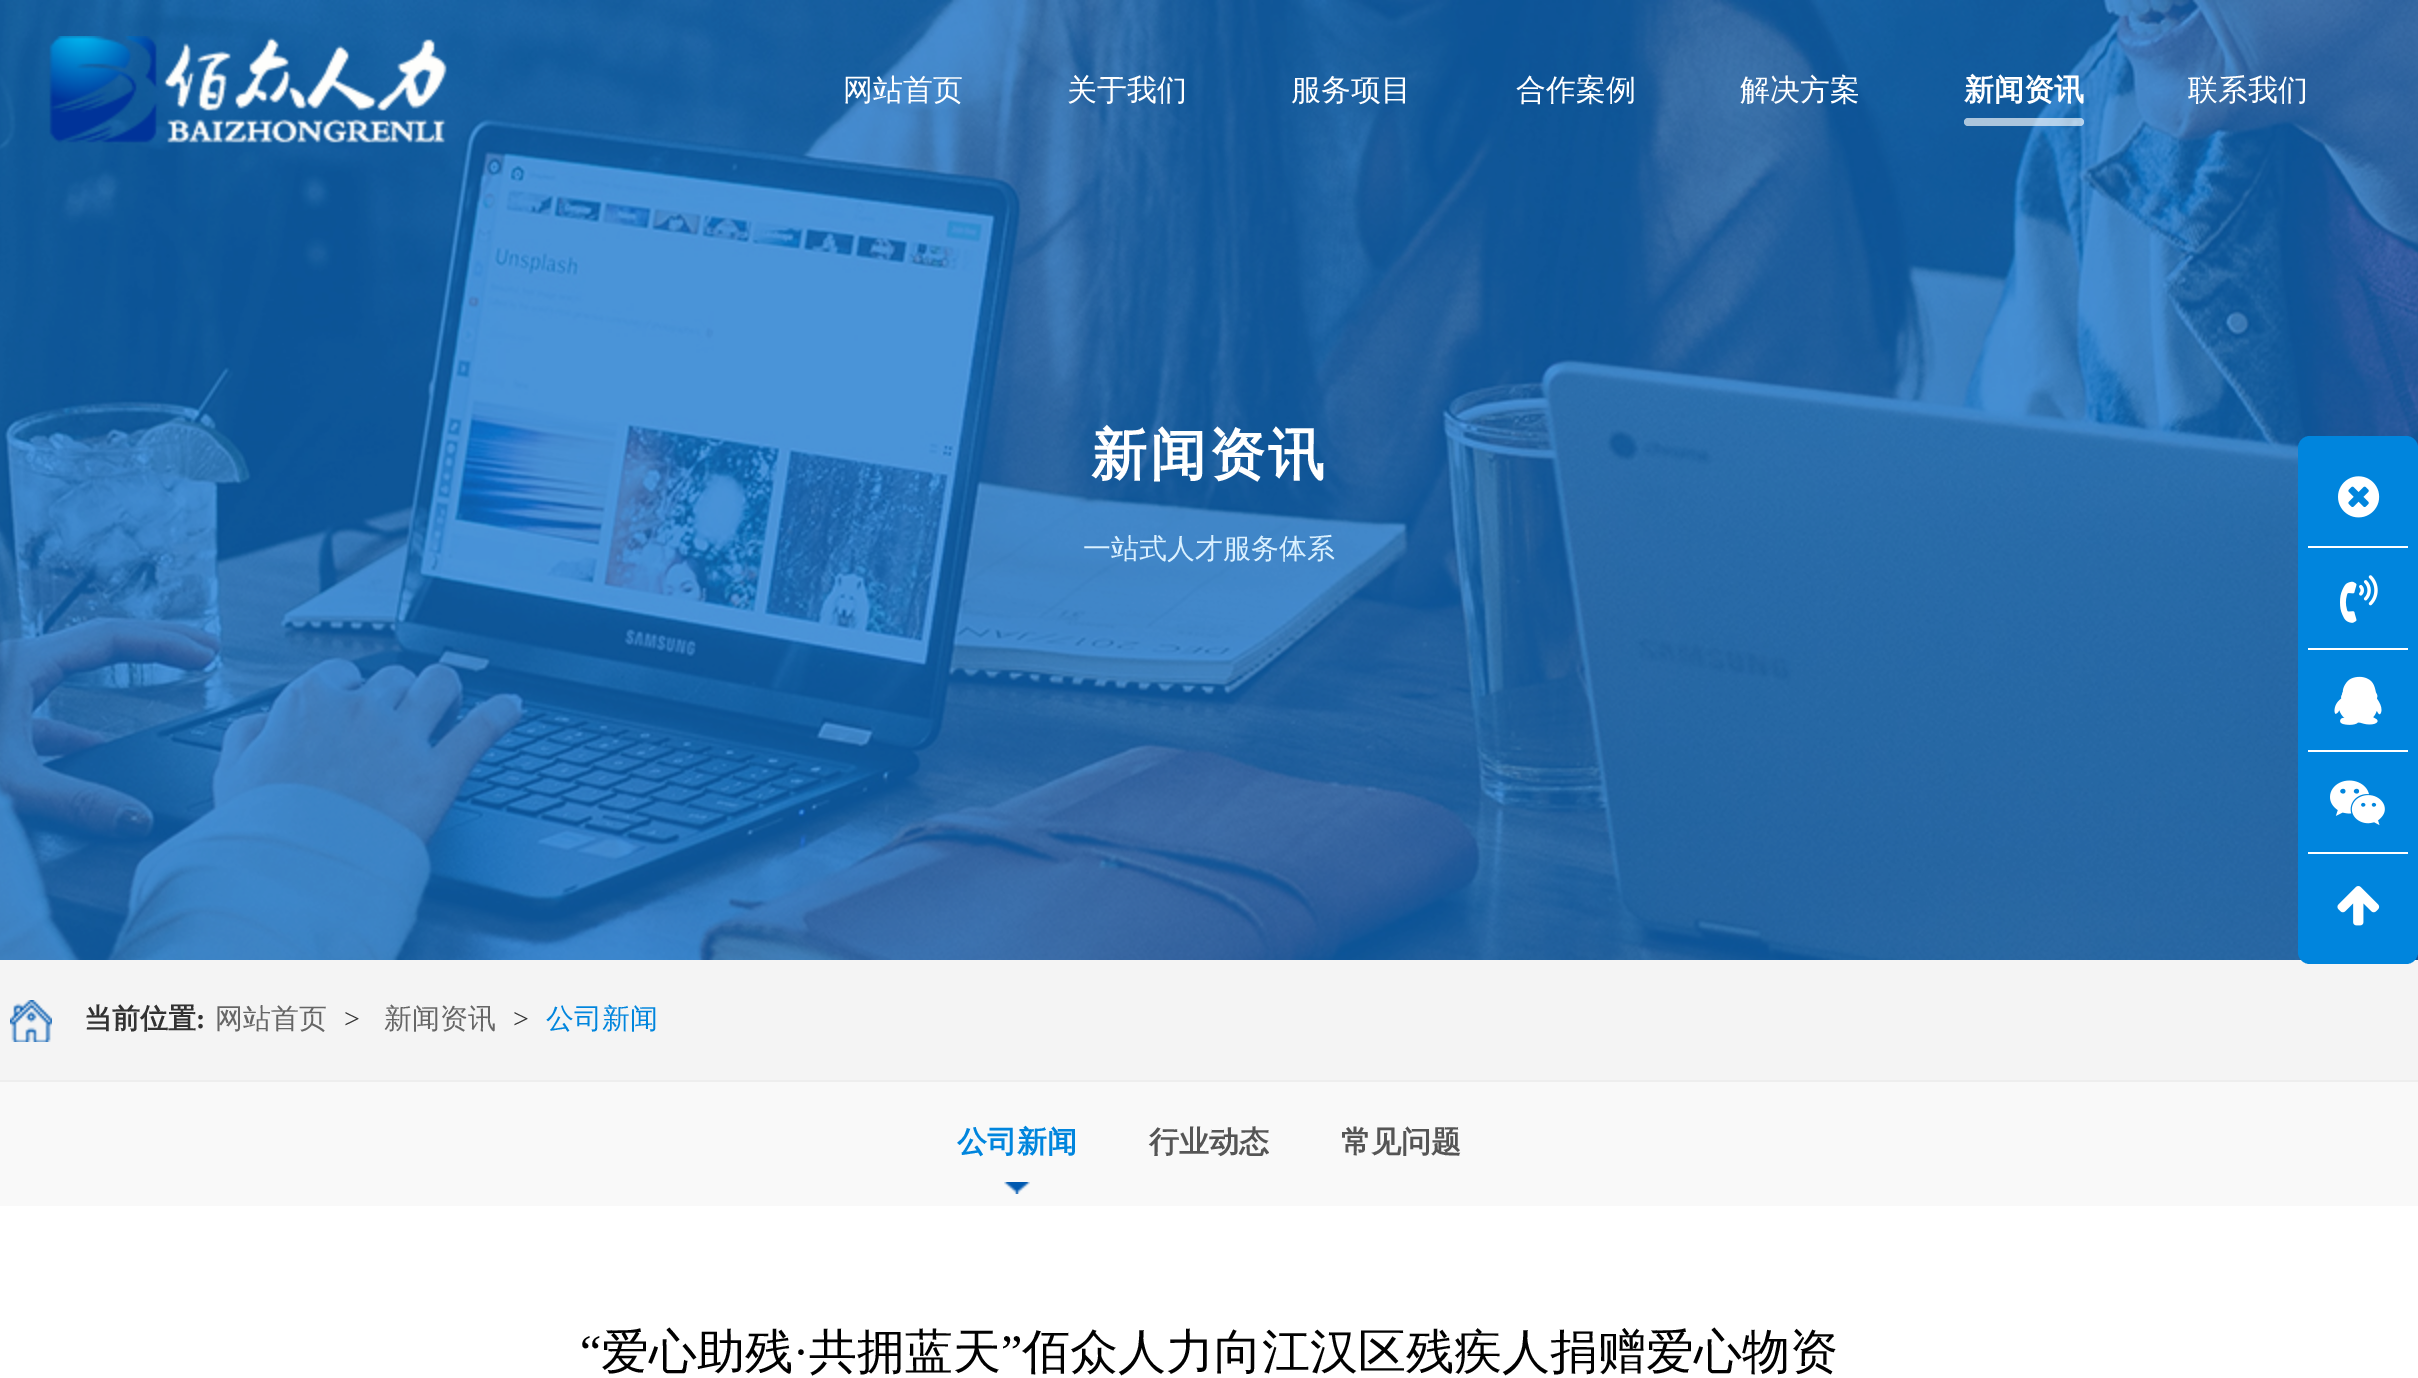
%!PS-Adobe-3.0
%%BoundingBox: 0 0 2418 1378
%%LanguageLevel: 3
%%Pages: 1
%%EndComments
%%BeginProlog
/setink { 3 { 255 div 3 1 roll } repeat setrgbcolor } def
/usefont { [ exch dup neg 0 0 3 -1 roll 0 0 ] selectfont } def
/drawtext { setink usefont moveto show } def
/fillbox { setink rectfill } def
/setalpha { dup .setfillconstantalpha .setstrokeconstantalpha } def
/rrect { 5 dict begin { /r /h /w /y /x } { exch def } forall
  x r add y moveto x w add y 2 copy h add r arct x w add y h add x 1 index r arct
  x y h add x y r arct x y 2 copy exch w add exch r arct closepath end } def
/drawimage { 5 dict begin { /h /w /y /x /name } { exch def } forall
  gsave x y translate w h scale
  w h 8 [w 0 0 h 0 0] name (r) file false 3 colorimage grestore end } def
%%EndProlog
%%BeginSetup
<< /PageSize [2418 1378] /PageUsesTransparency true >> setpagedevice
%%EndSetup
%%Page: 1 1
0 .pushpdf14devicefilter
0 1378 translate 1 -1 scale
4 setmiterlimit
0 0 2418 1378 255 255 255 fillbox
(assets/img1.rgb) 0 0 2418 960 drawimage
(assets/img2.rgb) 49 36 398 107 drawimage
(网站首页) 843 100 /WenQuanYiZenHei-Medium 30 255 255 255 drawtext
(关于我们) 1067 100 /WenQuanYiZenHei-Medium 30 255 255 255 drawtext
(服务项目) 1291 100 /WenQuanYiZenHei-Medium 30 255 255 255 drawtext
(合作案例) 1516 100 /WenQuanYiZenHei-Medium 30 255 255 255 drawtext
(解决方案) 1740 100 /WenQuanYiZenHei-Medium 30 255 255 255 drawtext
(新闻资讯) 1964 100 /WenQuanYiZenHei-Bold 30 255 255 255 drawtext
0.65 setalpha
1964 118 120 8 4 rrect fill
1 setalpha
(联系我们) 2188 100 /WenQuanYiZenHei-Medium 30 255 255 255 drawtext
/WenQuanYiZenHei-Bold 56 usefont
1091 474 moveto 3 0 (新闻资讯) ashow
(一站式人才服务体系) 1083 558 /WenQuanYiZenHei-Medium 28 217 240 255 drawtext
0 960 2418 120 244 244 244 fillbox
0 133 221 setink
2298 436 120 528 12 rrect fill
2308 546 100 2 255 255 255 fillbox
(assets/img3.rgb) 2338 476 42 42 drawimage
2308 648 100 2 255 255 255 fillbox
(assets/img4.rgb) 2340 575 38 48 drawimage
2308 750 100 2 255 255 255 fillbox
(assets/img5.rgb) 2334 676 48 49 drawimage
2308 852 100 2 255 255 255 fillbox
(assets/img6.rgb) 2330 780 55 46 drawimage
(assets/img7.rgb) 2337 886 43 40 drawimage
(assets/img8.rgb) 10 1000 42 42 drawimage
(当前位置) 84 1028 /WenQuanYiZenHei-Bold 28 50 50 50 drawtext
(:) 196 1028 /LiberationSerif-Bold 28 50 50 50 drawtext
(网站首页) 215 1028 /WenQuanYiZenHei-Medium 28 102 102 102 drawtext
(>) 344 1028 /LiberationSerif-Regular 28 50 50 50 drawtext
(新闻资讯) 384 1028 /WenQuanYiZenHei-Medium 28 102 102 102 drawtext
(>) 513 1028 /LiberationSerif-Regular 28 50 50 50 drawtext
(公司新闻) 546 1028 /WenQuanYiZenHei-Medium 28 0 133 221 drawtext
0 1082 2418 124 249 249 249 fillbox
0 1080 2418 2 238 238 238 fillbox
(公司新闻) 957 1152 /WenQuanYiZenHei-Bold 30 0 133 221 drawtext
(assets/img9.rgb) 1004 1182 26 12 drawimage
(行业动态) 1149 1152 /WenQuanYiZenHei-Bold 30 85 85 85 drawtext
(常见问题) 1341 1152 /WenQuanYiZenHei-Bold 30 85 85 85 drawtext
(“) 580 1368 /LiberationSerif-Regular 48 1 1 1 drawtext
(爱心助残) 601 1368 /WenQuanYiZenHei-Medium 48 1 1 1 drawtext
(共拥蓝天) 809 1368 /WenQuanYiZenHei-Medium 48 1 1 1 drawtext
(”) 1001 1368 /LiberationSerif-Regular 48 1 1 1 drawtext
(佰众人力向江汉区残疾人捐赠爱心物资) 1022 1368 /WenQuanYiZenHei-Medium 48 1 1 1 drawtext
(·) 793 1368 /LiberationSerif-Regular 48 1 1 1 drawtext
.poppdf14devicefilter showpage
%%EOF
